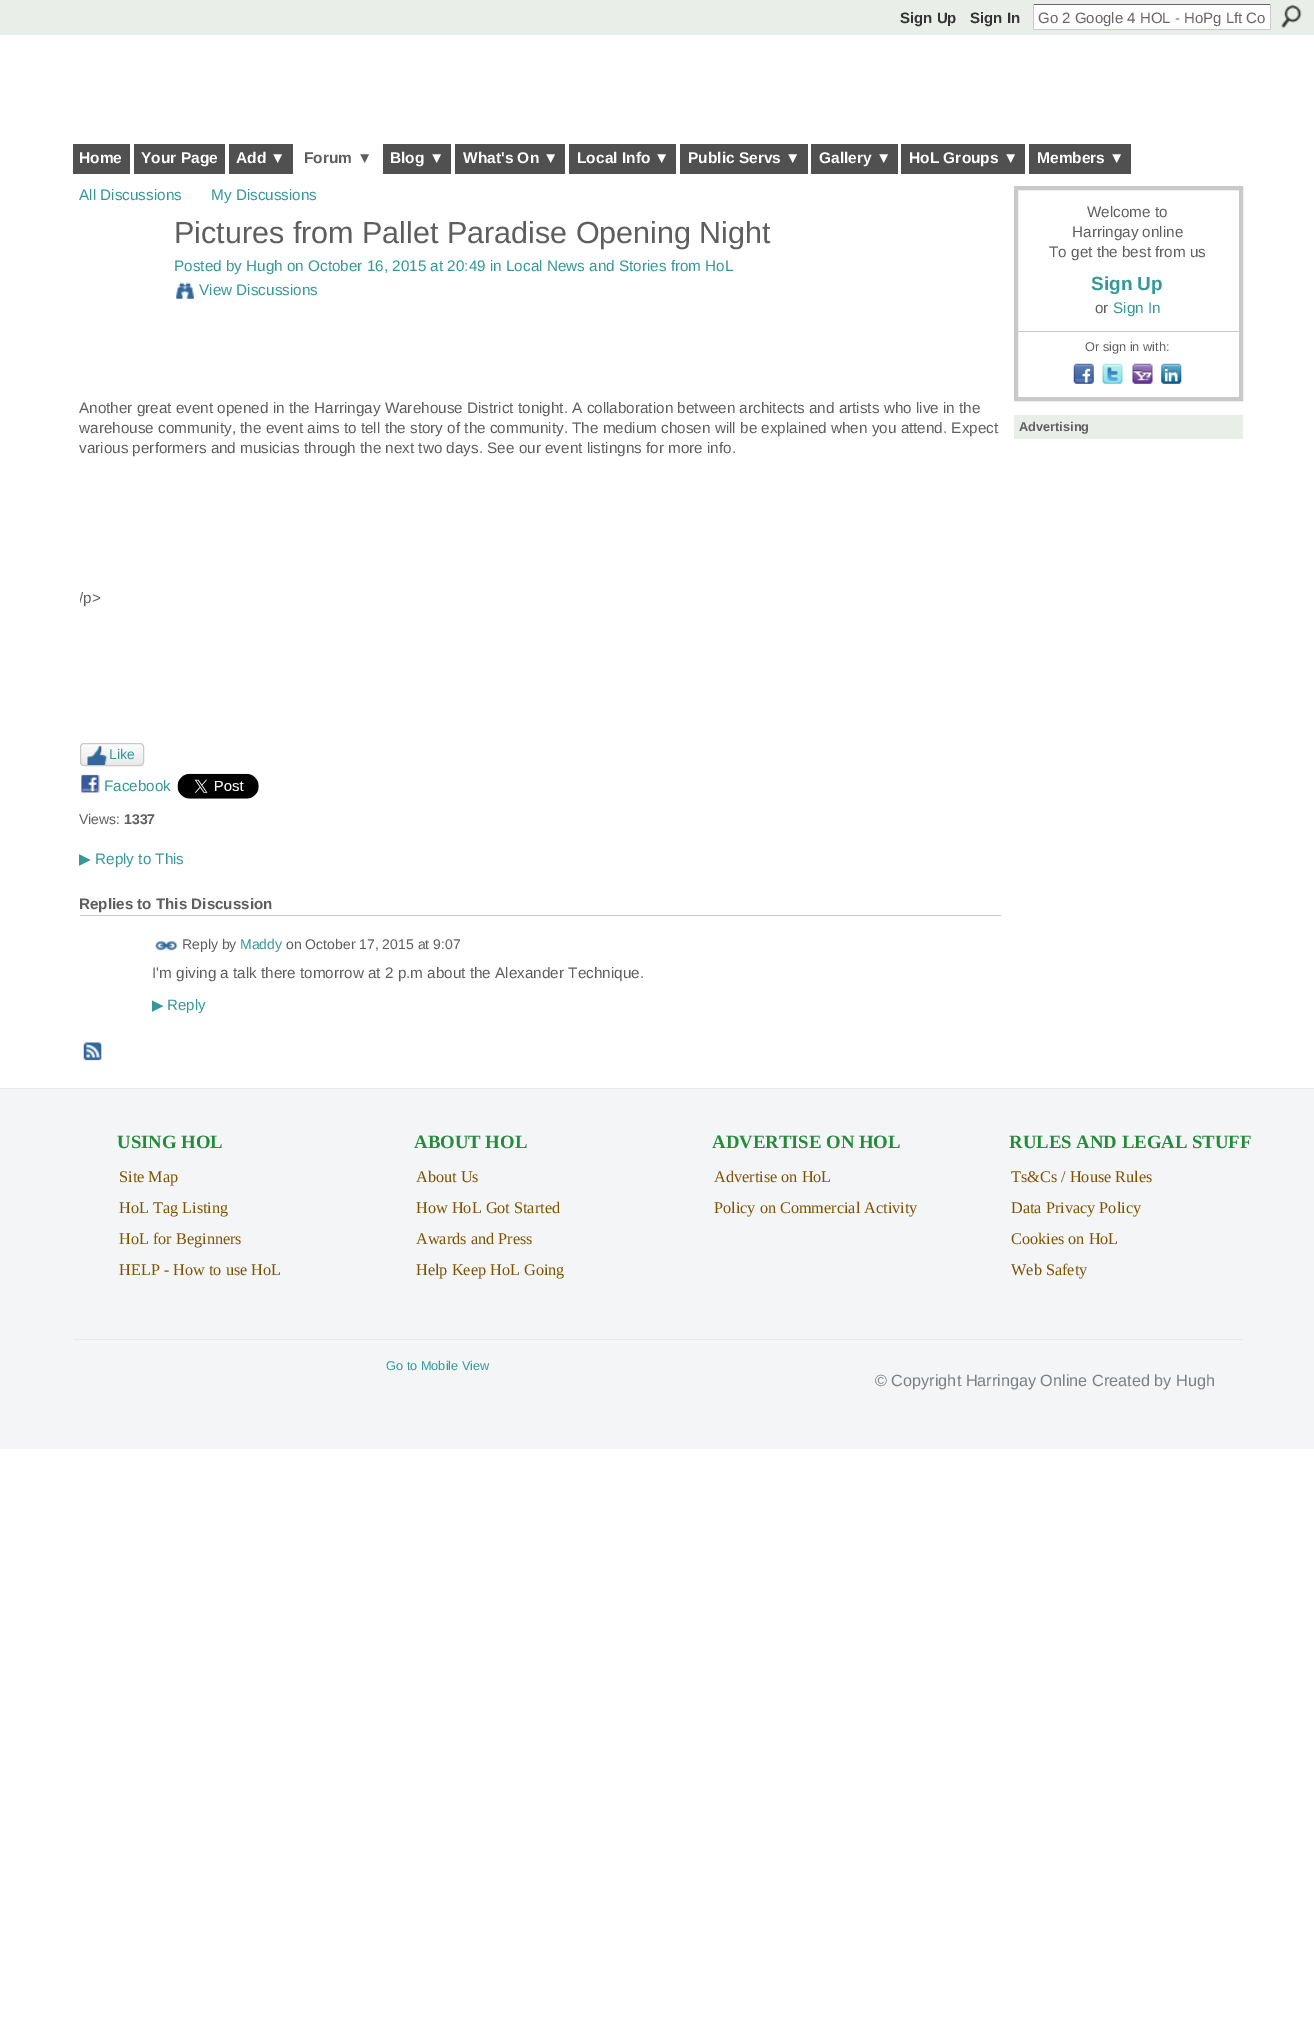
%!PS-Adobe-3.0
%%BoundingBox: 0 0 1314 2019
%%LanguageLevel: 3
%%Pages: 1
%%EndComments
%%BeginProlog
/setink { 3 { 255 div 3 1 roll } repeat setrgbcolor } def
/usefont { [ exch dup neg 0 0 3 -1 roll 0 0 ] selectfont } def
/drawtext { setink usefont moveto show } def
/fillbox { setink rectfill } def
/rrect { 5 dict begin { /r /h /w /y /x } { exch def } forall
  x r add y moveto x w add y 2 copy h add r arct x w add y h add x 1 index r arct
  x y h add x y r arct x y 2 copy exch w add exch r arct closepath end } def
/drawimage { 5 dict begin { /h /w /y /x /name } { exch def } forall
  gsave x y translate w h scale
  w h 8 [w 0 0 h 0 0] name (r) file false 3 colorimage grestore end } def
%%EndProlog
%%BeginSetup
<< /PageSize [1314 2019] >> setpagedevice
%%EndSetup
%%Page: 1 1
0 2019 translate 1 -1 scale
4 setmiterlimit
0 0 1314 2019 255 255 255 fillbox
0 0 1314 35 233 238 232 fillbox
(Sign Up) 900 23 /LiberationSans-Bold 15 51 51 51 drawtext
(Sign In) 970 23 /LiberationSans-Bold 15 51 51 51 drawtext
1034 5 236 24 255 255 255 fillbox
1033 4 238 1 102 102 102 fillbox
1270 4 1 26 204 204 204 fillbox
1033 29 238 1 204 204 204 fillbox
1033 4 1 26 204 204 204 fillbox
(Go 2 Google 4 HOL - HoPg Lft Co) 1038 23 /LiberationSans-Regular 15 102 102 102 drawtext
(assets/img1.rgb) 1281 5 21 23 drawimage
73 144 57 30 80 80 80 fillbox
(Home) 79 163 /LiberationSans-Bold 15.5 255 255 255 drawtext
134 144 91 30 80 80 80 fillbox
(Your Page) 141 163 /LiberationSans-Bold 15.5 255 255 255 drawtext
229 144 64 30 80 80 80 fillbox
(Add ▼) 236 163 /LiberationSans-Bold 15.5 255 255 255 drawtext
(Forum ▼) 304 163 /LiberationSans-Bold 15.5 94 94 94 drawtext
383 144 68 30 80 80 80 fillbox
(Blog ▼) 390 163 /LiberationSans-Bold 15.5 255 255 255 drawtext
455 144 110 30 80 80 80 fillbox
(What's On ▼) 463 163 /LiberationSans-Bold 15.5 255 255 255 drawtext
569 144 107 30 80 80 80 fillbox
(Local Info ▼) 577 163 /LiberationSans-Bold 15.5 255 255 255 drawtext
680 144 128 30 80 80 80 fillbox
(Public Servs ▼) 688 163 /LiberationSans-Bold 15.5 255 255 255 drawtext
811 144 87 30 80 80 80 fillbox
(Gallery ▼) 819 163 /LiberationSans-Bold 15.5 255 255 255 drawtext
901 144 124 30 80 80 80 fillbox
(HoL Groups ▼) 909 163 /LiberationSans-Bold 15.5 255 255 255 drawtext
1029 144 102 30 80 80 80 fillbox
(Members ▼) 1037 163 /LiberationSans-Bold 15.5 255 255 255 drawtext
(All Discussions) 79 200 /LiberationSans-Regular 15.27 52 152 153 drawtext
(My Discussions) 211 200 /LiberationSans-Regular 15.27 52 152 153 drawtext
(Pictures from Pallet Paradise Opening Night) 174 243 /LiberationSans-Regular 30.5 94 94 94 drawtext
(Posted by Hugh on October 16, 2015 at 20:49 in Local News and Stories from HoL) 174 271 /LiberationSans-Regular 15.27 52 152 153 drawtext
(assets/img2.rgb) 176 282 18 17 drawimage
(View Discussions) 199 295 /LiberationSans-Regular 15.27 52 152 153 drawtext
(Another great event opened in the Harringay Warehouse District tonight. A collaboration between architects and artists who live in the) 79 413 /LiberationSans-Regular 15.27 94 94 94 drawtext
(warehouse community, the event aims to tell the story of the community. The medium chosen will be explained when you attend. Expect) 79 433 /LiberationSans-Regular 15.27 94 94 94 drawtext
(various performers and musicias through the next two days. See our event listingns for more info.) 79 453 /LiberationSans-Regular 15.27 94 94 94 drawtext
gsave
80 334 921 399 rectclip
(/p>) 79 603 /LiberationSans-Regular 15.27 94 94 94 drawtext
grestore
(assets/img3.rgb) 80 745 64 21 drawimage
201 201 201 setink
80.5 743.5 63 22 3.5 rrect stroke
(assets/img4.rgb) 87 746 20 19 drawimage
(Like) 109 759 /LiberationSans-Regular 14 52 152 153 drawtext
(assets/img5.rgb) 81 774 19 19 drawimage
(Facebook) 104 791 /LiberationSans-Regular 15.27 52 152 153 drawtext
(assets/img6.rgb) 177 773 82 26 drawimage
(Views:) 79 824 /LiberationSans-Regular 14 94 94 94 drawtext
(1337) 124 824 /LiberationSans-Bold 14 94 94 94 drawtext
(▶) 79 864 /DejaVuSans-Regular 15.27 52 152 153 drawtext
(Reply to This) 95 864 /LiberationSans-Regular 15.27 52 152 153 drawtext
(Replies to This Discussion) 79 909 /LiberationSans-Bold 15.2 94 94 94 drawtext
80 915 921 1 201 201 201 fillbox
(assets/img7.rgb) 155 941 23 10 drawimage
(Reply by) 182 949 /LiberationSans-Regular 14 94 94 94 drawtext
(Maddy) 240 949 /LiberationSans-Regular 14 52 152 153 drawtext
(on October 17, 2015 at 9:07) 286 949 /LiberationSans-Regular 14 94 94 94 drawtext
(I'm giving a talk there tomorrow at 2 p.m about the Alexander Technique.) 152 978 /LiberationSans-Regular 15.27 94 94 94 drawtext
(▶) 152 1010 /DejaVuSans-Regular 15 52 152 153 drawtext
(Reply) 167 1010 /LiberationSans-Regular 15 52 152 153 drawtext
(assets/img8.rgb) 83 1042 19 19 drawimage
201 201 201 setink
4 setlinewidth
1016 188 225 211 rectstroke
(Welcome to) 1087 217 /LiberationSans-Regular 15.27 94 94 94 drawtext
(Harringay online) 1072 237 /LiberationSans-Regular 15.27 94 94 94 drawtext
(To get the best from us) 1049 257 /LiberationSans-Regular 15.27 94 94 94 drawtext
(Sign Up) 1091 290 /LiberationSans-Bold 19 52 152 153 drawtext
(or) 1095 313 /LiberationSans-Regular 15.27 94 94 94 drawtext
(Sign In) 1113 313 /LiberationSans-Regular 15.27 52 152 153 drawtext
1018 331 221 1 201 201 201 fillbox
(Or sign in with:) 1085 351 /LiberationSans-Regular 12.75 94 94 94 drawtext
(assets/img9.rgb) 1073 363 21 21 drawimage
(assets/img10.rgb) 1102 363 21 21 drawimage
(assets/img11.rgb) 1132 363 21 21 drawimage
(assets/img12.rgb) 1161 363 21 21 drawimage
1014 415 229 24 233 238 232 fillbox
(Advertising) 1019 431 /LiberationSans-Bold 12.75 94 94 94 drawtext
0 1089 1314 360 244 245 247 fillbox
0 1088 1314 1 229 234 238 fillbox
74 1339 1169 1 229 234 238 fillbox
(USING HOL) 117 1148 /LiberationSerif-Bold 18.75 36 139 57 drawtext
(Site Map) 119 1182 /LiberationSerif-Regular 16.25 126 82 2 drawtext
(HoL Tag Listing) 119 1213 /LiberationSerif-Regular 16.25 126 82 2 drawtext
(HoL for Beginners) 119 1244 /LiberationSerif-Regular 16.25 126 82 2 drawtext
(HELP - How to use HoL) 119 1275 /LiberationSerif-Regular 16.25 126 82 2 drawtext
(ABOUT HOL) 414 1148 /LiberationSerif-Bold 18.75 36 139 57 drawtext
(About Us) 416 1182 /LiberationSerif-Regular 16.25 126 82 2 drawtext
(How HoL Got Started) 416 1213 /LiberationSerif-Regular 16.25 126 82 2 drawtext
(Awards and Press) 416 1244 /LiberationSerif-Regular 16.25 126 82 2 drawtext
(Help Keep HoL Going) 416 1275 /LiberationSerif-Regular 16.25 126 82 2 drawtext
(ADVERTISE ON HOL) 712 1148 /LiberationSerif-Bold 18.75 36 139 57 drawtext
(Advertise on HoL) 714 1182 /LiberationSerif-Regular 16.25 126 82 2 drawtext
(Policy on Commercial Activity) 714 1213 /LiberationSerif-Regular 16.25 126 82 2 drawtext
(RULES AND LEGAL STUFF) 1009 1148 /LiberationSerif-Bold 18.75 36 139 57 drawtext
(Ts&Cs / House Rules) 1011 1182 /LiberationSerif-Regular 16.25 126 82 2 drawtext
(Data Privacy Policy) 1011 1213 /LiberationSerif-Regular 16.25 126 82 2 drawtext
(Cookies on HoL) 1011 1244 /LiberationSerif-Regular 16.25 126 82 2 drawtext
(Web Safety) 1011 1275 /LiberationSerif-Regular 16.25 126 82 2 drawtext
(Go to Mobile View) 386 1370 /LiberationSans-Regular 12.75 52 152 153 drawtext
(© Copyright Harringay Online Created by Hugh) 875 1386 /LiberationSans-Regular 16.25 123 128 132 drawtext
showpage
%%EOF
